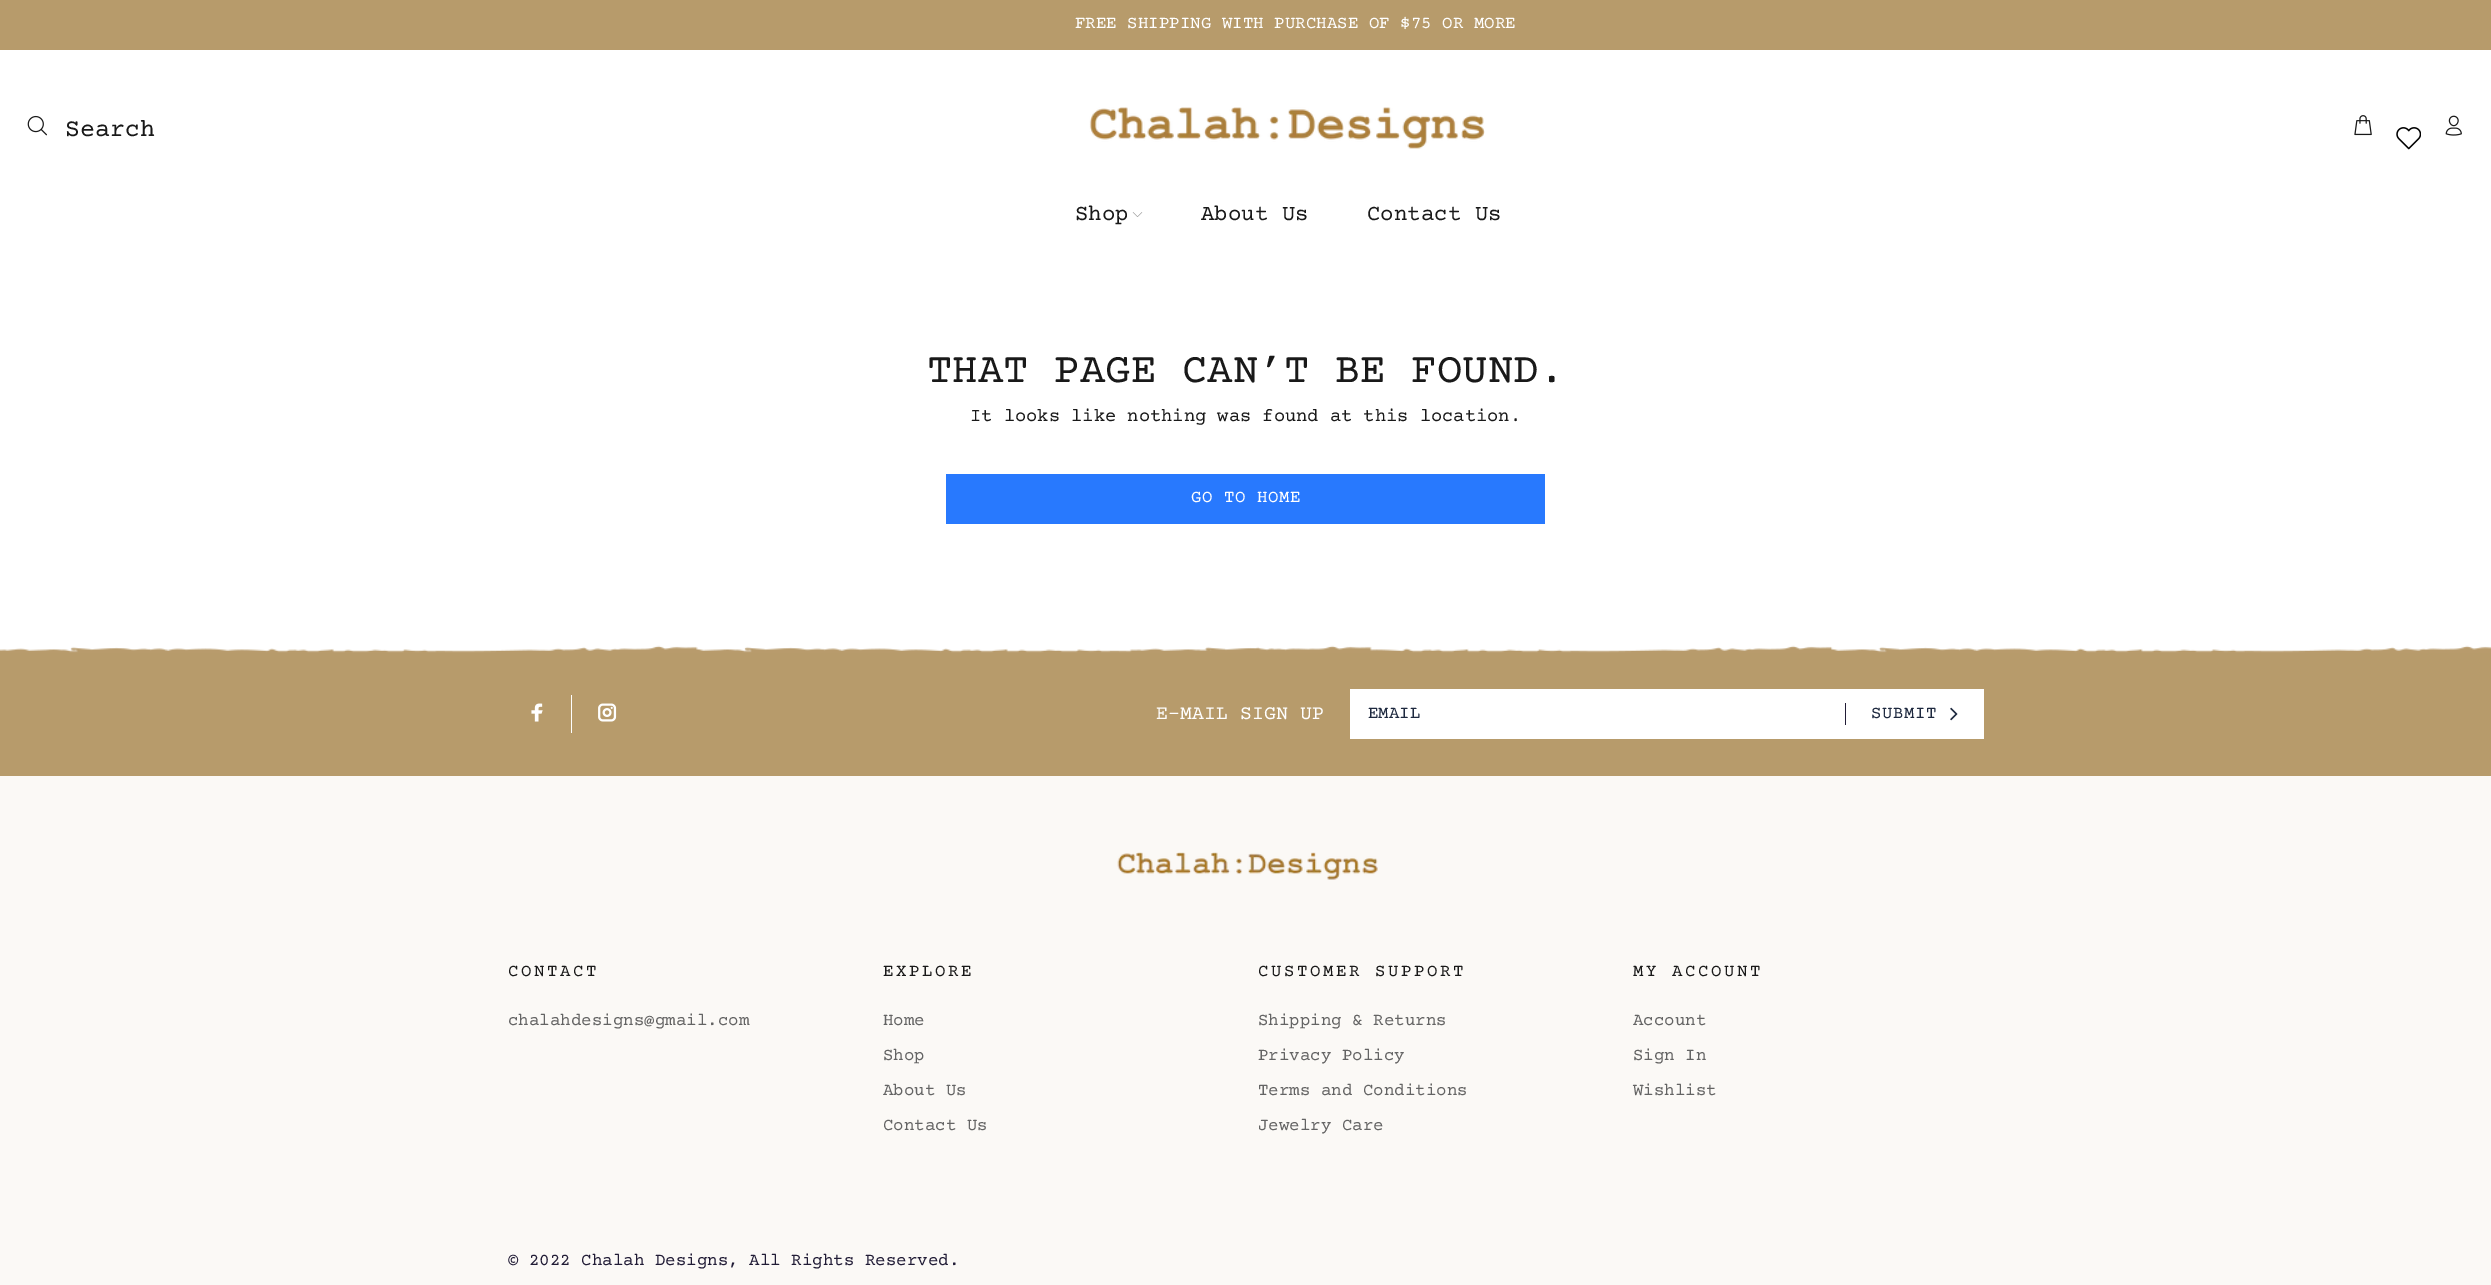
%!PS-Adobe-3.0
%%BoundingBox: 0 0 2491 1285
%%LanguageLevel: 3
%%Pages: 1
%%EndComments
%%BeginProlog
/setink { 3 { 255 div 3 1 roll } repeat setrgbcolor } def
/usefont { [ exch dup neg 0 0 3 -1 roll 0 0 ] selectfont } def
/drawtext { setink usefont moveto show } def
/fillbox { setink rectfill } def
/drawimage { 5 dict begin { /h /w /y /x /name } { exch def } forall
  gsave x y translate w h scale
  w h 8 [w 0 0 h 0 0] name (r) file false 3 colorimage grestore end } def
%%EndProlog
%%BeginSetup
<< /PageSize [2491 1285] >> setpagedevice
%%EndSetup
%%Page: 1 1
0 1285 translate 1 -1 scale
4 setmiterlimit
0 0 2491 1285 255 255 255 fillbox
0 0 2491 50 183 155 107 fillbox
(FREE SHIPPING WITH PURCHASE OF $75 OR MORE) 1075 28 /CourierPrime-Regular 17.5 255 255 255 drawtext
(assets/img1.rgb) 27 115 20 21 drawimage
(Search) 65 136 /CourierPrime-Regular 25 25 25 25 drawtext
(assets/img2.rgb) 1089 107 396 42 drawimage
(assets/img3.rgb) 2354 115 18 21 drawimage
(assets/img4.rgb) 2396 127 25 23 drawimage
(assets/img5.rgb) 2445 115 17 21 drawimage
(Shop) 1075 220 /CourierPrime-Regular 22.5 25 25 25 drawtext
(assets/img6.rgb) 1132 212 11 5 drawimage
(About Us) 1201 220 /CourierPrime-Regular 22.5 25 25 25 drawtext
(Contact Us) 1367 220 /CourierPrime-Regular 22.5 25 25 25 drawtext
(THAT PAGE CAN’T BE FOUND.) 927 382 /CourierPrime-Regular 42.5 25 25 25 drawtext
(It looks like nothing was found at this location.) 970 421 /CourierPrime-Regular 18.75 25 25 25 drawtext
946 474 599 50 40 121 254 fillbox
/CourierPrime-Regular 17.5 usefont
255 255 255 setink
1191 502 moveto 0.5 0 (GO TO HOME) ashow
0 776 2491 509 251 249 246 fillbox
0 653 2491 123 183 155 107 fillbox
(assets/img7.rgb) 0 645 2491 8 drawimage
(assets/img8.rgb) 531 703 12 19 drawimage
571 695 1 38 255 255 255 fillbox
(assets/img9.rgb) 598 703 19 19 drawimage
(E-MAIL SIGN UP) 1156 719 /CourierPrime-Regular 20 255 255 255 drawtext
1350 689 634 50 255 255 255 fillbox
(EMAIL) 1368 718 /CourierPrime-Regular 17.5 30 41 63 drawtext
1845 703 1 22 33 28 54 fillbox
30 41 63 setink
1871 718 moveto 0.5 0 (SUBMIT) ashow
(assets/img10.rgb) 1950 707 8 14 drawimage
(assets/img11.rgb) 1117 852 261 28 drawimage
25 25 25 setink
508 976 moveto 2.5 0 (CONTACT) ashow
(chalahdesigns@gmail.com) 508 1025 /CourierPrime-Regular 17.5 100 100 100 drawtext
25 25 25 setink
883 976 moveto 2.5 0 (EXPLORE) ashow
(Home) 883 1025 /CourierPrime-Regular 17.5 100 100 100 drawtext
(Shop) 883 1060 /CourierPrime-Regular 17.5 100 100 100 drawtext
(About Us) 883 1095 /CourierPrime-Regular 17.5 100 100 100 drawtext
(Contact Us) 883 1130 /CourierPrime-Regular 17.5 100 100 100 drawtext
25 25 25 setink
1258 976 moveto 2.5 0 (CUSTOMER SUPPORT) ashow
(Shipping & Returns) 1258 1025 /CourierPrime-Regular 17.5 100 100 100 drawtext
(Privacy Policy) 1258 1060 /CourierPrime-Regular 17.5 100 100 100 drawtext
(Terms and Conditions) 1258 1095 /CourierPrime-Regular 17.5 100 100 100 drawtext
(Jewelry Care) 1258 1130 /CourierPrime-Regular 17.5 100 100 100 drawtext
25 25 25 setink
1633 976 moveto 2.5 0 (MY ACCOUNT) ashow
(Account) 1633 1025 /CourierPrime-Regular 17.5 100 100 100 drawtext
(Sign In) 1633 1060 /CourierPrime-Regular 17.5 100 100 100 drawtext
(Wishlist) 1633 1095 /CourierPrime-Regular 17.5 100 100 100 drawtext
(© 2022 Chalah Designs, All Rights Reserved.) 508 1265 /CourierPrime-Regular 17.5 33 28 54 drawtext
showpage
%%EOF
